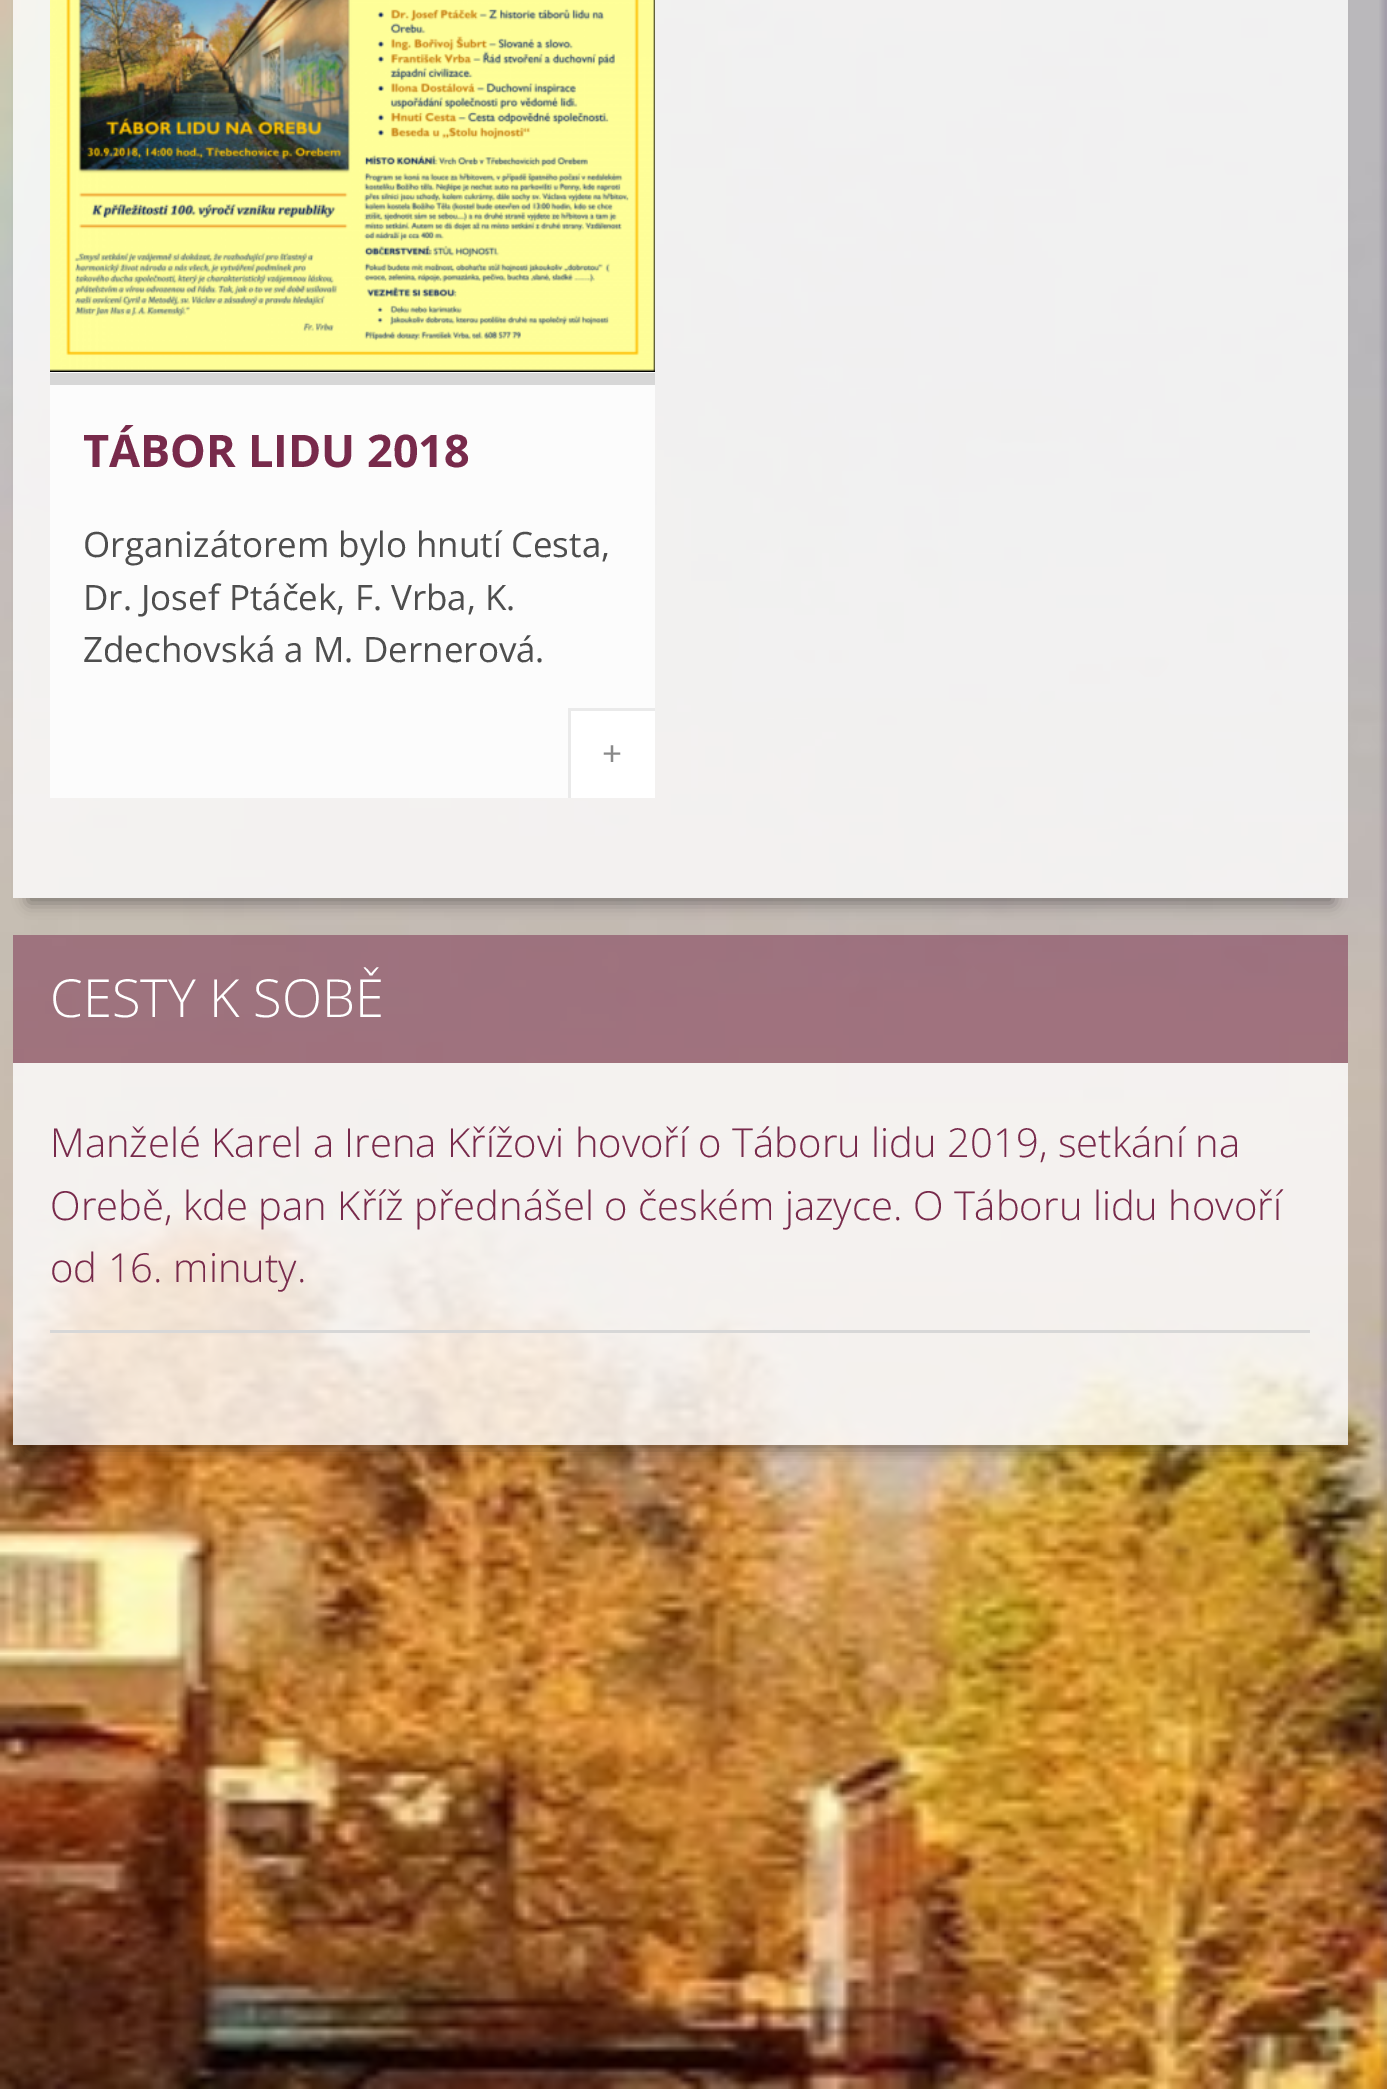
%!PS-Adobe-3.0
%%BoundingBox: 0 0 1387 2089
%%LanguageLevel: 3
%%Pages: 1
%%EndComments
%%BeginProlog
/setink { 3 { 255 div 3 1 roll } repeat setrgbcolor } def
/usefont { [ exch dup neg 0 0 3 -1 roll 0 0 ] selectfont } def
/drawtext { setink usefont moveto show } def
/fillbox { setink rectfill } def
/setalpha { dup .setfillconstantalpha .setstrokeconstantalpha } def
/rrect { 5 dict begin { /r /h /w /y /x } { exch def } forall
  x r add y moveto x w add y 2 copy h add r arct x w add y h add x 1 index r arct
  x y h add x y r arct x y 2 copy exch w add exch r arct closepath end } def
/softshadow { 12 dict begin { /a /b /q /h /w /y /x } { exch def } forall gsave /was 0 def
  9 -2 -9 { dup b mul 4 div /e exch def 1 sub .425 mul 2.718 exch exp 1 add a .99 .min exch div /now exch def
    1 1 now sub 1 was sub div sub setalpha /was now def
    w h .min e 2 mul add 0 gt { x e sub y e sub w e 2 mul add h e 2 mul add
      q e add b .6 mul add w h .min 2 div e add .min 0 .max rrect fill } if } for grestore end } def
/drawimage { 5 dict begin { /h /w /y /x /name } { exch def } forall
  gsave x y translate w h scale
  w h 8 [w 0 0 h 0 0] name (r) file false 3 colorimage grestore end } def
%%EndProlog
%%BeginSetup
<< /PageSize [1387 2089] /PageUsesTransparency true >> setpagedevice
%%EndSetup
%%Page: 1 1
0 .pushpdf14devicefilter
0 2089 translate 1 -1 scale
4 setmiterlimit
0 0 1387 2089 255 255 255 fillbox
(assets/img1.rgb) 0 0 1387 2089 drawimage
gsave
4 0 moveto 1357 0 lineto 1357 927 lineto 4 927 lineto closepath 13 -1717 moveto 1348 -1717 lineto 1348 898 lineto 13 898 lineto closepath eoclip newpath
0 0 0 setink
28 -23 1305 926 0 7.5 0.35 softshadow
grestore
0.8 setalpha
13 0 1335 848 255 255 255 fillbox
1 setalpha
50 372 605 426 252 252 252 fillbox
(assets/img2.rgb) 50 0 605 372 drawimage
50 373 605 12 215 215 215 fillbox
(TÁBOR LIDU 2018) 83 467 /OpenSans-Bold 45 120 42 75 drawtext
(Organizátorem bylo hnutí Cesta,) 83 557 /OpenSans-Regular 35 78 78 78 drawtext
(Dr. Josef Ptáček, F. Vrba, K.) 83 610 /OpenSans-Regular 35 78 78 78 drawtext
(Zdechovská a M. Dernerová.) 83 662 /OpenSans-Regular 35 78 78 78 drawtext
571 711 84 87 255 255 255 fillbox
568 708 87 3 234 234 234 fillbox
568 708 3 90 234 234 234 fillbox
(+) 602 766 /OpenSans-Regular 35 137 137 137 drawtext
0.8 setalpha
13 848 1335 50 255 255 255 fillbox
gsave
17 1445 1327 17 rectclip
1 setalpha
0 0 0 setink
28 970 1305 480 0 7.5 0.35 softshadow
grestore
0.5 setalpha
13 935 1335 128 120 42 75 fillbox
1 setalpha
(CESTY K SOBĚ) 50 1017 /OpenSans-Light 52.5 255 255 255 drawtext
0.8 setalpha
13 1063 1335 332 255 255 255 fillbox
1 setalpha
50 1330 1260 3 215 215 215 fillbox
(Manželé Karel a Irena Křížovi hovoří o Táboru lidu 2019, setkání na) 50 1157 /OpenSans-Light 40 120 42 75 drawtext
(Orebě, kde pan Kříž přednášel o českém jazyce. O Táboru lidu hovoří) 50 1220 /OpenSans-Light 40 120 42 75 drawtext
(od 16. minuty.) 50 1282 /OpenSans-Light 40 120 42 75 drawtext
0.8 setalpha
13 1395 1335 50 255 255 255 fillbox
.poppdf14devicefilter showpage
%%EOF
